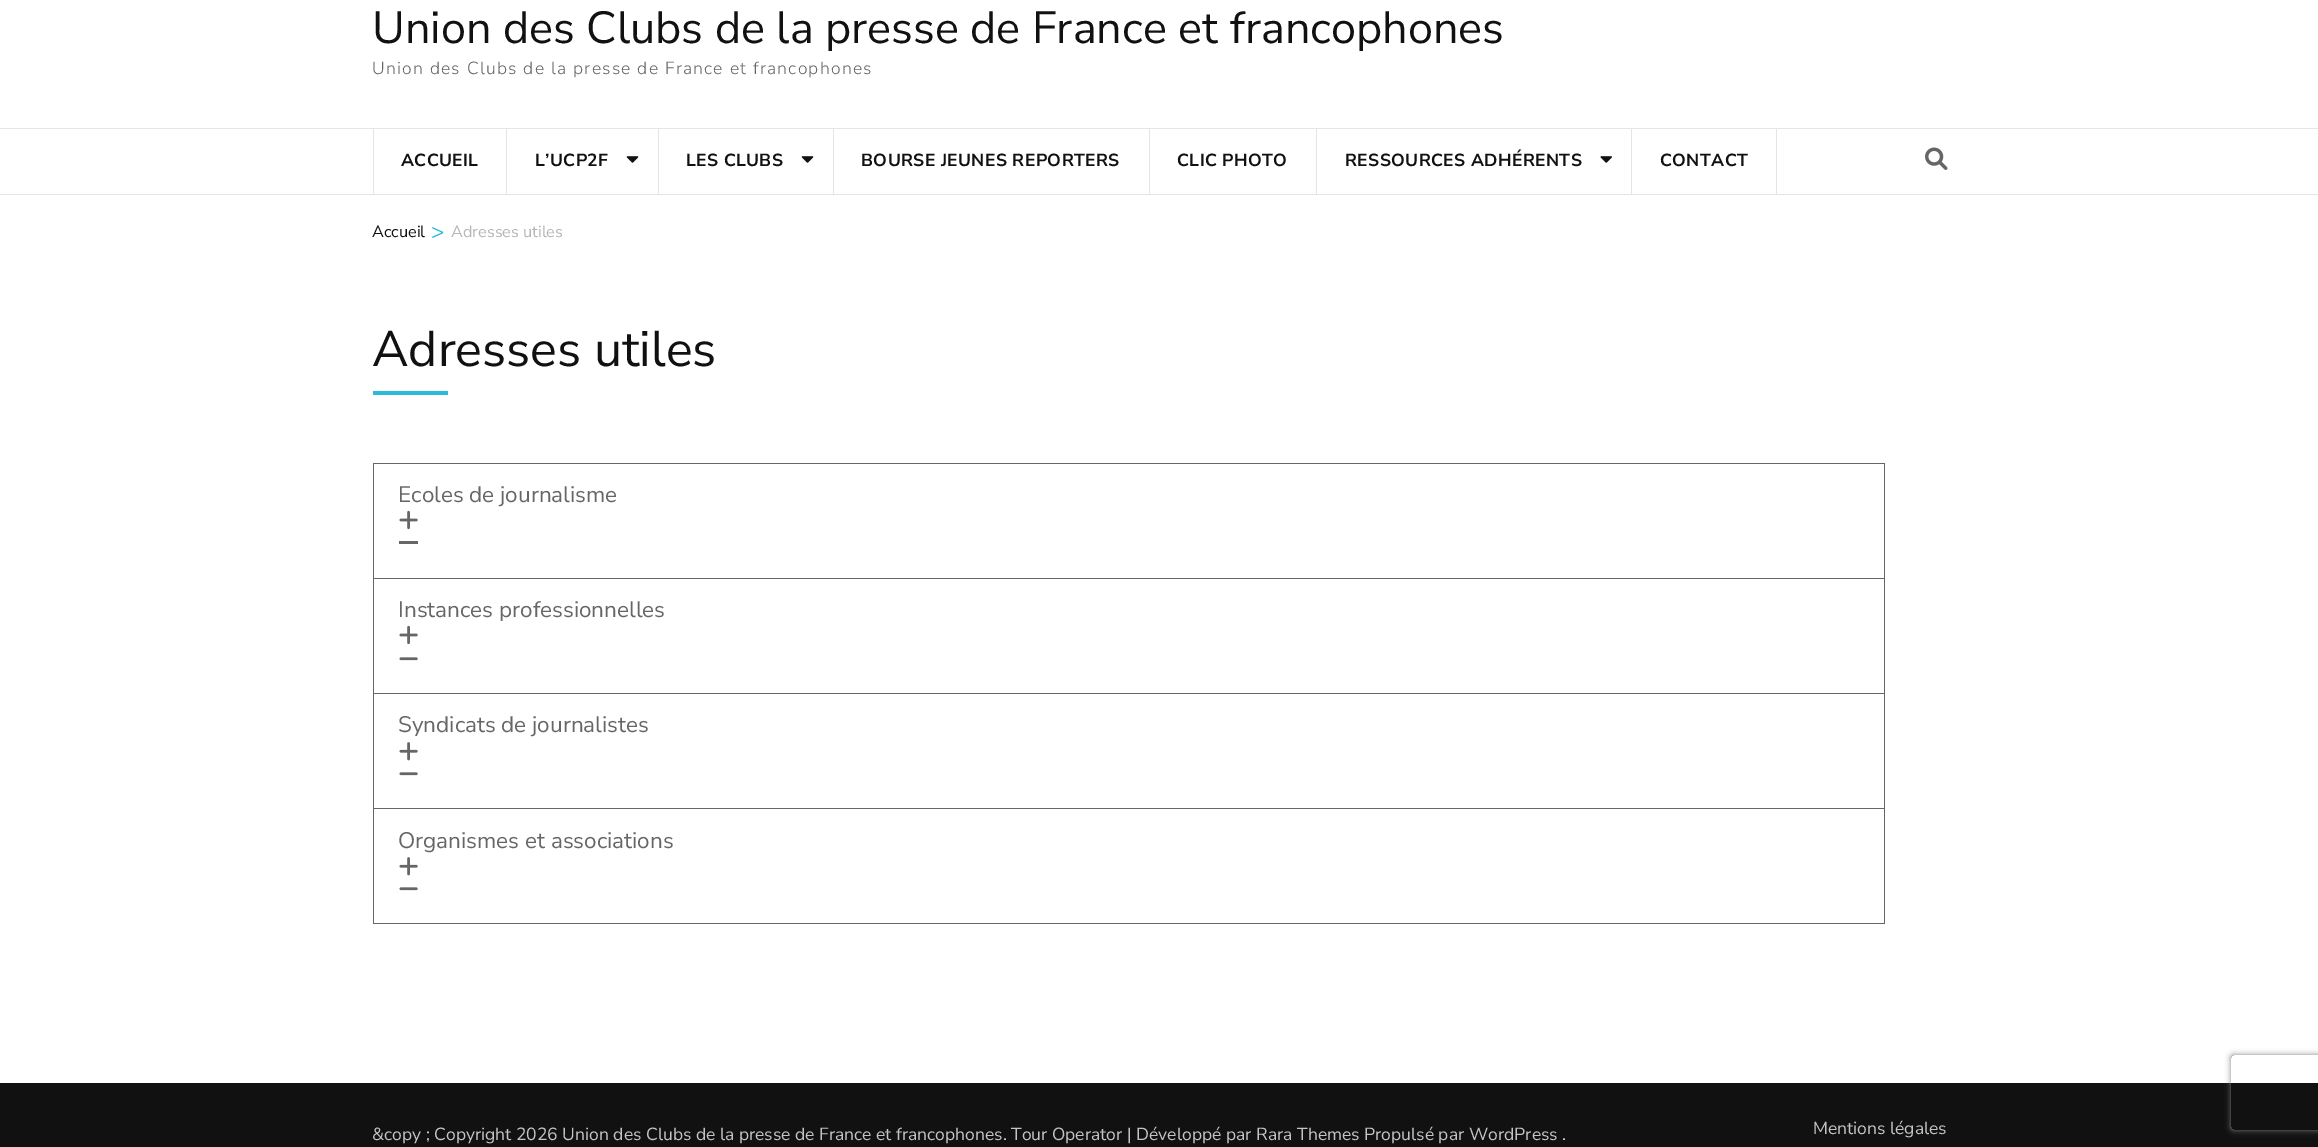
%!PS-Adobe-3.0
%%BoundingBox: 0 0 2318 1147
%%LanguageLevel: 3
%%Pages: 1
%%EndComments
%%BeginProlog
/setink { 3 { 255 div 3 1 roll } repeat setrgbcolor } def
/usefont { [ exch dup neg 0 0 3 -1 roll 0 0 ] selectfont } def
/drawtext { setink usefont moveto show } def
/fillbox { setink rectfill } def
/setalpha { dup .setfillconstantalpha .setstrokeconstantalpha } def
/rrect { 5 dict begin { /r /h /w /y /x } { exch def } forall
  x r add y moveto x w add y 2 copy h add r arct x w add y h add x 1 index r arct
  x y h add x y r arct x y 2 copy exch w add exch r arct closepath end } def
/softshadow { 12 dict begin { /a /b /q /h /w /y /x } { exch def } forall gsave /was 0 def
  9 -2 -9 { dup b mul 4 div /e exch def 1 sub .425 mul 2.718 exch exp 1 add a .99 .min exch div /now exch def
    1 1 now sub 1 was sub div sub setalpha /was now def
    w h .min e 2 mul add 0 gt { x e sub y e sub w e 2 mul add h e 2 mul add
      q e add b .6 mul add w h .min 2 div e add .min 0 .max rrect fill } if } for grestore end } def
/drawimage { 5 dict begin { /h /w /y /x /name } { exch def } forall
  gsave x y translate w h scale
  w h 8 [w 0 0 h 0 0] name (r) file false 3 colorimage grestore end } def
%%EndProlog
%%BeginSetup
<< /PageSize [2318 1147] /PageUsesTransparency true >> setpagedevice
%%EndSetup
%%Page: 1 1
0 .pushpdf14devicefilter
0 1147 translate 1 -1 scale
4 setmiterlimit
0 0 2318 1147 255 255 255 fillbox
(Union des Clubs de la presse de France et francophones) 372 43 /NunitoSans-Regular 45 17 17 17 drawtext
/NunitoSans-Light 17.5 usefont
102 102 102 setink
372 74 moveto 1.25 0 (Union des Clubs de la presse de France et francophones) ashow
0 128 2318 1 229 229 229 fillbox
0 194 2318 1 229 229 229 fillbox
506 129 1 65 229 229 229 fillbox
373 129 1 65 229 229 229 fillbox
/NunitoSans-Bold 17.5 usefont
17 17 17 setink
401 166 moveto 0.4 0 (ACCUEIL) ashow
658 129 1 65 229 229 229 fillbox
17 17 17 setink
535 166 moveto 0.4 0 (L’UCP2F) ashow
(assets/img1.rgb) 626 156 13 7 drawimage
833 129 1 65 229 229 229 fillbox
17 17 17 setink
686 166 moveto 0.4 0 (LES CLUBS) ashow
(assets/img1.rgb) 801 156 13 7 drawimage
1149 129 1 65 229 229 229 fillbox
17 17 17 setink
861 166 moveto 0.4 0 (BOURSE JEUNES REPORTERS) ashow
1316 129 1 65 229 229 229 fillbox
17 17 17 setink
1177 166 moveto 0.4 0 (CLIC PHOTO) ashow
1631 129 1 65 229 229 229 fillbox
17 17 17 setink
1345 166 moveto 0.4 0 (RESSOURCES ADHÉRENTS) ashow
(assets/img2.rgb) 1600 156 12 7 drawimage
1776 129 1 65 229 229 229 fillbox
17 17 17 setink
1660 166 moveto 0.4 0 (CONTACT) ashow
(assets/img3.rgb) 1925 147 23 23 drawimage
(Accueil) 372 237 /NunitoSans-Regular 16.25 17 17 17 drawtext
(>) 431 239 /NunitoSans-Regular 22.5 43 187 216 drawtext
(Adresses utiles) 451 237 /NunitoSans-Regular 16.25 181 181 181 drawtext
(Adresses utiles) 372 366 /NunitoSans-Regular 50 17 17 17 drawtext
373 391 75 4 43 187 216 fillbox
373 923 1512 1 102 102 102 fillbox
373 463 1512 1 102 102 102 fillbox
1884 463 1 115 102 102 102 fillbox
373 463 1 115 102 102 102 fillbox
(Ecoles de journalisme) 398 502 /NunitoSans-Regular 22.5 102 102 102 drawtext
(assets/img4.rgb) 399 510 19 20 drawimage
399 541 19 3 102 102 102 fillbox
373 578 1512 1 102 102 102 fillbox
1884 578 1 115 102 102 102 fillbox
373 578 1 115 102 102 102 fillbox
(Instances professionnelles) 398 617 /NunitoSans-Regular 22.5 102 102 102 drawtext
(assets/img4.rgb) 399 625 19 20 drawimage
(assets/img5.rgb) 399 657 19 4 drawimage
373 693 1512 1 102 102 102 fillbox
1884 693 1 115 102 102 102 fillbox
373 693 1 115 102 102 102 fillbox
(Syndicats de journalistes) 398 732 /NunitoSans-Regular 22.5 102 102 102 drawtext
(assets/img6.rgb) 399 742 19 19 drawimage
(assets/img5.rgb) 399 772 19 4 drawimage
373 808 1512 1 102 102 102 fillbox
1884 808 1 115 102 102 102 fillbox
373 808 1 115 102 102 102 fillbox
(Organismes et associations) 398 848 /NunitoSans-Regular 22.5 102 102 102 drawtext
(assets/img6.rgb) 399 857 19 19 drawimage
(assets/img5.rgb) 399 887 19 4 drawimage
0 1083 2318 64 17 17 17 fillbox
(&copy ; Copyright 2026 Union des Clubs de la presse de France et francophones. Tour Operator | Développé par Rara Themes Propulsé par WordPress .) 372 1140 /NunitoSans-Regular 17.5 196 196 196 drawtext
(Mentions légales) 1813 1134 /NunitoSans-Regular 17.5 196 196 196 drawtext
gsave
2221 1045 moveto 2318 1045 lineto 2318 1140 lineto 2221 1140 lineto closepath 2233.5 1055 moveto 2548.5 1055 lineto 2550 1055 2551 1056 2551 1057.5 curveto 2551 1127.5 lineto 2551 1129 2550 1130 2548.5 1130 curveto 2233.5 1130 lineto 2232 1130 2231 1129 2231 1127.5 curveto 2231 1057.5 lineto 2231 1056 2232 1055 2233.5 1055 curveto closepath eoclip newpath
128 128 128 setink
2231 1055 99 75 2.5 3 1 softshadow
grestore
.poppdf14devicefilter showpage
%%EOF
